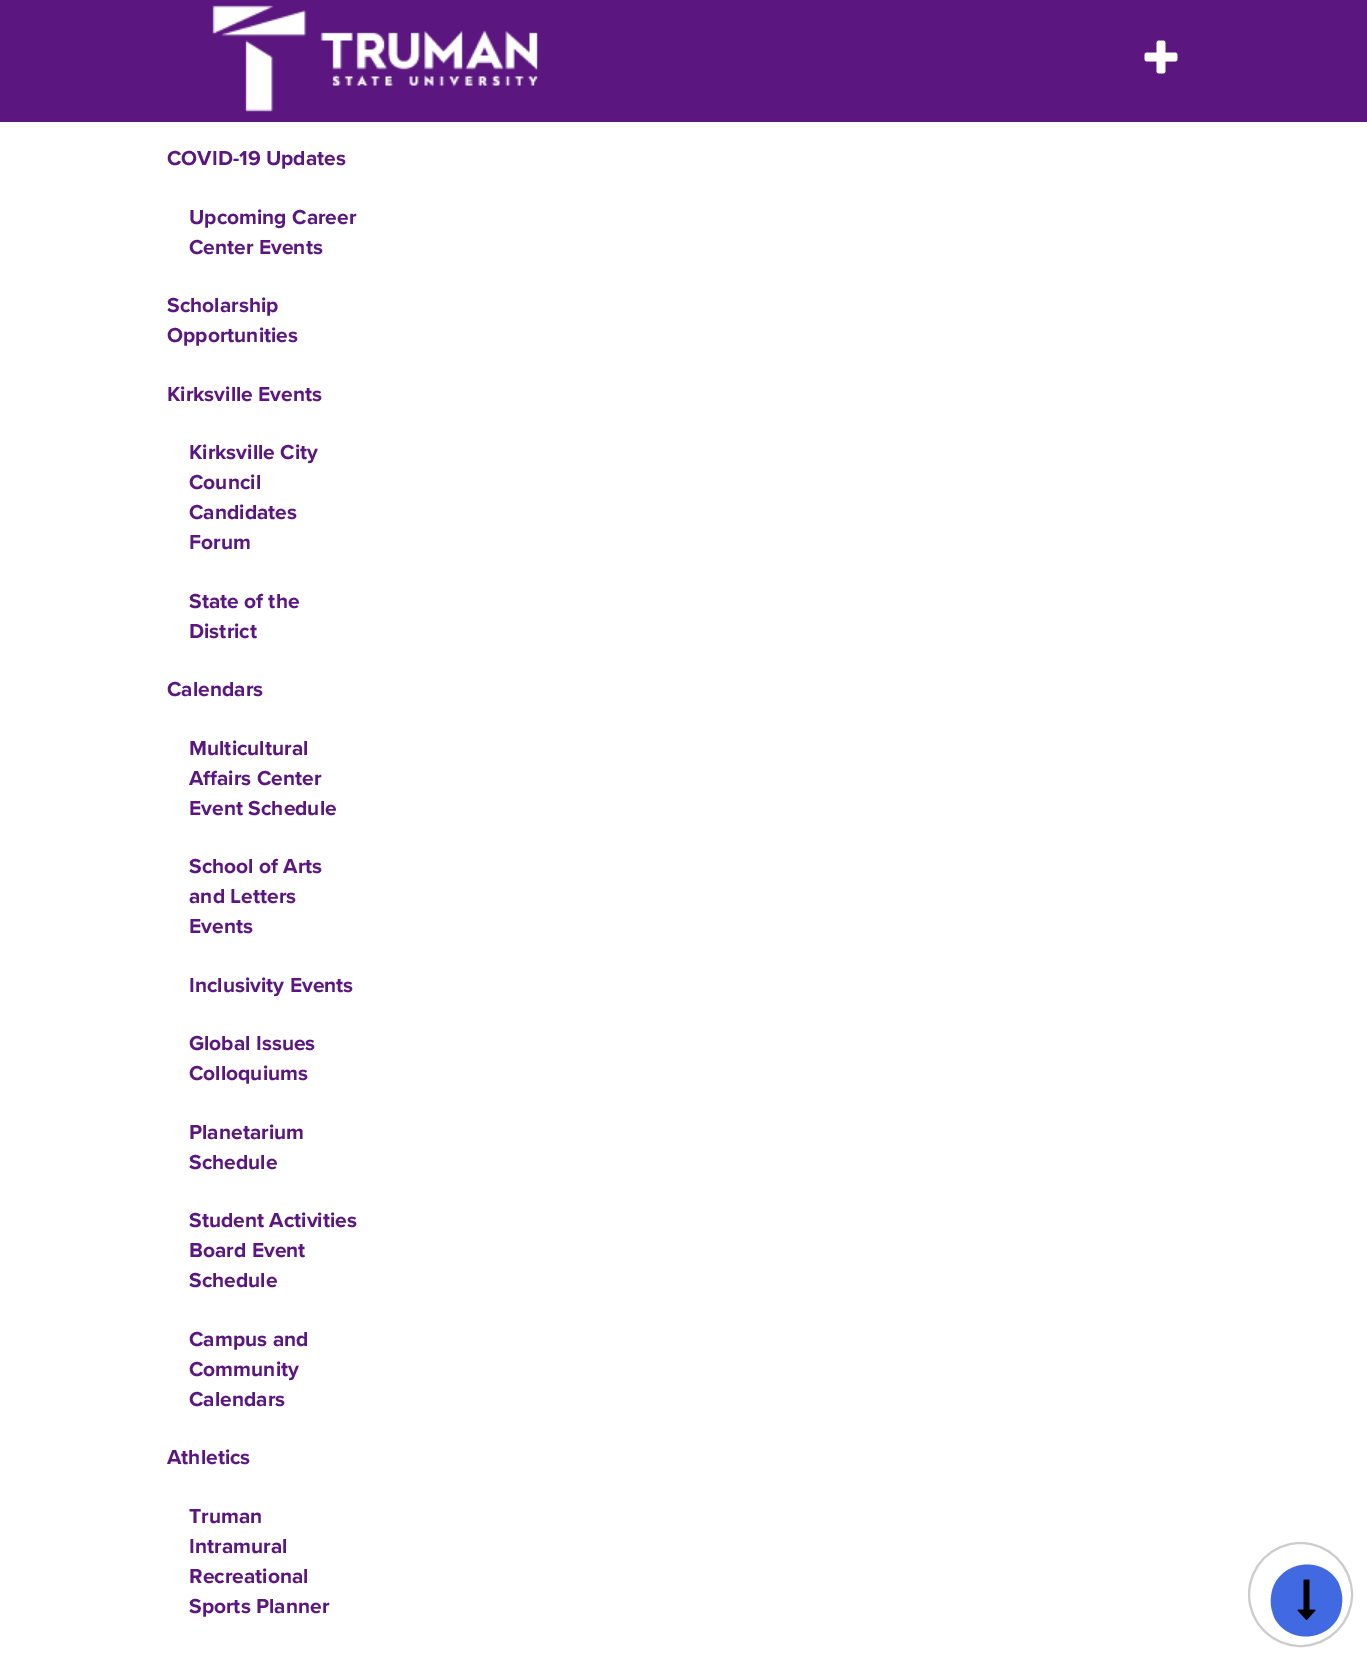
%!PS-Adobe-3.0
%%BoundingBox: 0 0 1367 1662
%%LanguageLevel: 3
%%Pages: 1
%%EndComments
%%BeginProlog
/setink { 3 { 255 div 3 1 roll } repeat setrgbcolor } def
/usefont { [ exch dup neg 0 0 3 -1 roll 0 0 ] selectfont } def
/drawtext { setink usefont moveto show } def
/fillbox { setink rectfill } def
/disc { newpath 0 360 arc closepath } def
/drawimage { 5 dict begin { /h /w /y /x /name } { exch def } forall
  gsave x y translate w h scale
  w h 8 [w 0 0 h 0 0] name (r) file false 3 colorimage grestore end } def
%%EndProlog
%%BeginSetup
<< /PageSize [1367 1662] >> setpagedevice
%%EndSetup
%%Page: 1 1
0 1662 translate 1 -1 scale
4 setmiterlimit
0 0 1367 1662 255 255 255 fillbox
0 0 1367 122 91 23 127 fillbox
(assets/img1.rgb) 212 5 326 107 drawimage
(assets/img2.rgb) 1144 40 34 34 drawimage
(COVID-19 Updates) 167 165 /ProximaNova-Bold 21 91 23 127 drawtext
(Upcoming Career) 189 224 /ProximaNova-Bold 21 91 23 127 drawtext
(Center Events) 189 254 /ProximaNova-Bold 21 91 23 127 drawtext
(Scholarship) 167 312 /ProximaNova-Bold 21 91 23 127 drawtext
(Opportunities) 167 342 /ProximaNova-Bold 21 91 23 127 drawtext
(Kirksville Events) 167 401 /ProximaNova-Bold 21 91 23 127 drawtext
(Kirksville City) 189 459 /ProximaNova-Bold 21 91 23 127 drawtext
(Council) 189 489 /ProximaNova-Bold 21 91 23 127 drawtext
(Candidates) 189 519 /ProximaNova-Bold 21 91 23 127 drawtext
(Forum) 189 549 /ProximaNova-Bold 21 91 23 127 drawtext
(State of the) 189 608 /ProximaNova-Bold 21 91 23 127 drawtext
(District) 189 638 /ProximaNova-Bold 21 91 23 127 drawtext
(Calendars) 167 696 /ProximaNova-Bold 21 91 23 127 drawtext
(Multicultural) 189 755 /ProximaNova-Bold 21 91 23 127 drawtext
(Affairs Center) 189 785 /ProximaNova-Bold 21 91 23 127 drawtext
(Event Schedule) 189 815 /ProximaNova-Bold 21 91 23 127 drawtext
(School of Arts) 189 873 /ProximaNova-Bold 21 91 23 127 drawtext
(and Letters) 189 903 /ProximaNova-Bold 21 91 23 127 drawtext
(Events) 189 933 /ProximaNova-Bold 21 91 23 127 drawtext
(Inclusivity Events) 189 992 /ProximaNova-Bold 21 91 23 127 drawtext
(Global Issues) 189 1050 /ProximaNova-Bold 21 91 23 127 drawtext
(Colloquiums) 189 1080 /ProximaNova-Bold 21 91 23 127 drawtext
(Planetarium) 189 1139 /ProximaNova-Bold 21 91 23 127 drawtext
(Schedule) 189 1169 /ProximaNova-Bold 21 91 23 127 drawtext
(Student Activities) 189 1227 /ProximaNova-Bold 21 91 23 127 drawtext
(Board Event) 189 1257 /ProximaNova-Bold 21 91 23 127 drawtext
(Schedule) 189 1287 /ProximaNova-Bold 21 91 23 127 drawtext
(Campus and) 189 1346 /ProximaNova-Bold 21 91 23 127 drawtext
(Community) 189 1376 /ProximaNova-Bold 21 91 23 127 drawtext
(Calendars) 189 1406 /ProximaNova-Bold 21 91 23 127 drawtext
(Athletics) 167 1464 /ProximaNova-Bold 21 91 23 127 drawtext
(Truman) 189 1523 /ProximaNova-Bold 21 91 23 127 drawtext
(Intramural) 189 1553 /ProximaNova-Bold 21 91 23 127 drawtext
(Recreational) 189 1583 /ProximaNova-Bold 21 91 23 127 drawtext
(Sports Planner) 189 1613 /ProximaNova-Bold 21 91 23 127 drawtext
204 204 204 setink
2 setlinewidth
1300.5 1594.5 51.5 disc stroke
65 105 225 setink
1338 1582 moveto 1341 1589 1343 1596 1342 1603 curveto 1340 1638 1293 1649 1275 1619 curveto 1272 1612 1270 1605 1271 1598 curveto 1273 1563 1320 1552 1338 1582 curveto closepath fill
(assets/img3.rgb) 1297 1579 19 41 drawimage
showpage
%%EOF
